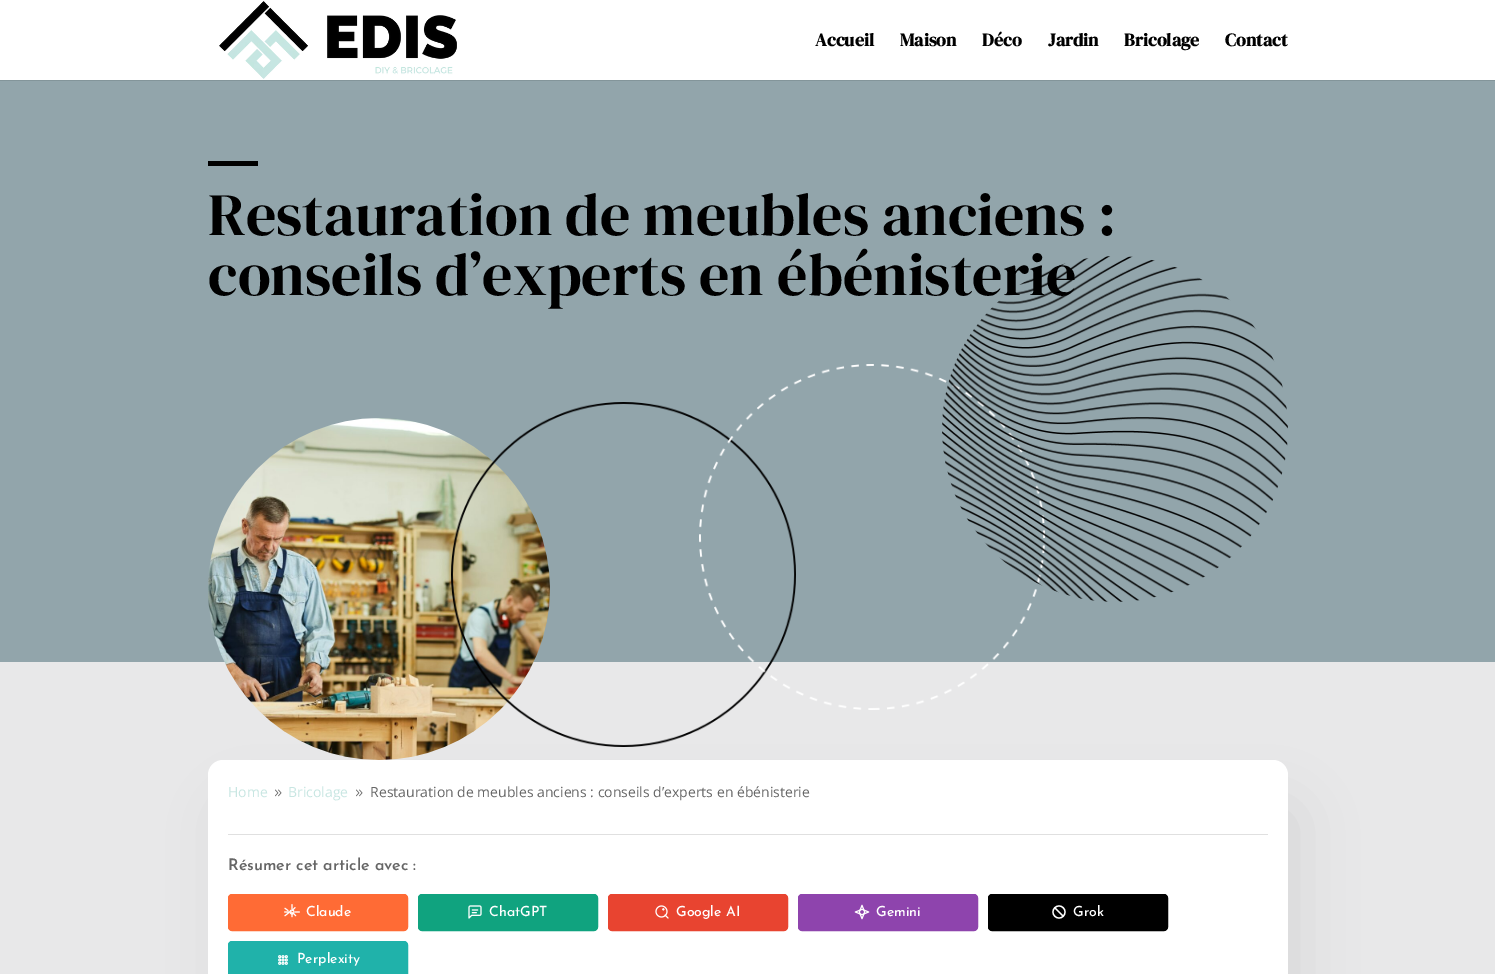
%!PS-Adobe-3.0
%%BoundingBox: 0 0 1495 974
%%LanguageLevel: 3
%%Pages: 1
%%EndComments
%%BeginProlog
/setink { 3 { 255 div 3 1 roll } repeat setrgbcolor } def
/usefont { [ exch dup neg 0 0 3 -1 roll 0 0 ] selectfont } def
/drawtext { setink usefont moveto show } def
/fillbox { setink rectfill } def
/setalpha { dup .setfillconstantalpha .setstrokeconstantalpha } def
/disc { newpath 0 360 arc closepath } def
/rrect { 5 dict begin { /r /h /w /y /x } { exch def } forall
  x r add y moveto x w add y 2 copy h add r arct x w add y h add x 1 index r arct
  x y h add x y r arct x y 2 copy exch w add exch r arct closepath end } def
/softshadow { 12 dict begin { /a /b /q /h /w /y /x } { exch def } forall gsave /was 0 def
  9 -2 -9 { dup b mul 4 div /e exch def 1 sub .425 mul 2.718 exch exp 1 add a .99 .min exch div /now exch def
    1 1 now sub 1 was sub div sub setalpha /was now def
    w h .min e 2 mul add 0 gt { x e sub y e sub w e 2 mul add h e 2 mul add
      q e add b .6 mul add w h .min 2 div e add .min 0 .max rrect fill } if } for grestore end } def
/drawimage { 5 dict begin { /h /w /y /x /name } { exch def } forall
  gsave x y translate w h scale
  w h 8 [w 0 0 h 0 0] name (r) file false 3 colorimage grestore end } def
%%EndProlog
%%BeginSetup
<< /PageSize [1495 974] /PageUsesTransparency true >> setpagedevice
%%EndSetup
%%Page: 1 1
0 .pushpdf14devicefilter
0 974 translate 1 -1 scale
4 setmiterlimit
0 0 1495 974 255 255 255 fillbox
0 80 1495 1 131 149 154 fillbox
(assets/img1.rgb) 219 1 238 78 drawimage
(Accueil) 815 46 /DMSerifDisplay-Bold 18 0 0 0 drawtext
(Maison) 900 46 /DMSerifDisplay-Bold 18 0 0 0 drawtext
(Déco) 982 46 /DMSerifDisplay-Bold 18 0 0 0 drawtext
(Jardin) 1048 46 /DMSerifDisplay-Bold 18 0 0 0 drawtext
(Bricolage) 1124 46 /DMSerifDisplay-Bold 18 0 0 0 drawtext
(Contact) 1225 46 /DMSerifDisplay-Bold 18 0 0 0 drawtext
0 81 1495 581 146 165 171 fillbox
208 161 50 5 0 0 0 fillbox
(Restauration de meubles anciens :) 208 235 /DMSerifDisplay-Regular 60 0 0 0 drawtext
0 662 1495 312 232 232 233 fillbox
(assets/img2.rgb) 208 418 342 342 drawimage
(assets/img3.rgb) 451 402 345 345 drawimage
(assets/img4.rgb) 699 364 346 346 drawimage
(assets/img5.rgb) 942 256 346 346 drawimage
(conseils d’experts en ébénisterie) 208 295 /DMSerifDisplay-Regular 60 0 0 0 drawtext
233 812 1060 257 5 30 0.08 softshadow
255 255 255 setink
208 760 1080 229 15 rrect fill
(Home) 228 797 /OpenSans-Regular 14 200 230 226 drawtext
(assets/img6.rgb) 275 789 7 8 drawimage
(Bricolage) 288 797 /OpenSans-Regular 14 200 230 226 drawtext
(assets/img6.rgb) 356 789 7 8 drawimage
(Restauration de meubles anciens : conseils d’experts en ébénisterie) 370 797 /OpenSans-Regular 14 102 102 102 drawtext
228 834 1040 1 224 224 224 fillbox
(Résumer cet article avec :) 228 870 /JosefinSans-Thin 16 102 102 102 drawtext
255 107 53 setink
228.5 894.5 179 36 3.5 rrect gsave fill grestore
stroke
(assets/img7.rgb) 284 904 16 14 drawimage
(Claude) 306 916 /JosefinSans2-Thin 14 255 255 255 drawtext
16 163 127 setink
418.5 894.5 179 36 3.5 rrect gsave fill grestore
stroke
(assets/img8.rgb) 468 905 14 14 drawimage
(ChatGPT) 489 916 /JosefinSans2-Thin 14 255 255 255 drawtext
232 68 48 setink
608.5 894.5 179 36 3.5 rrect gsave fill grestore
stroke
(assets/img9.rgb) 655 905 14 14 drawimage
(Google AI) 676 916 /JosefinSans2-Thin 14 255 255 255 drawtext
142 68 173 setink
798.5 894.5 179 36 3.5 rrect gsave fill grestore
stroke
(assets/img10.rgb) 854 904 16 16 drawimage
(Gemini) 876 916 /JosefinSans2-Thin 14 255 255 255 drawtext
0 0 0 setink
988.5 894.5 179 36 3.5 rrect gsave fill grestore
stroke
255 255 255 setink
1.3 setlinewidth
1059 912 6 disc stroke
1 setlinecap
1 setlinejoin
1055 908 moveto 1063 916 lineto stroke
(Grok) 1073 916 /JosefinSans2-Thin 14 255 255 255 drawtext
32 178 170 setink
228.5 941.5 179 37 3.5 rrect gsave fill grestore
1 setlinewidth
0 setlinecap
0 setlinejoin
stroke
(assets/img11.rgb) 278 955 10 10 drawimage
(Perplexity) 297 963 /JosefinSans2-Thin 14 255 255 255 drawtext
.poppdf14devicefilter showpage
%%EOF
